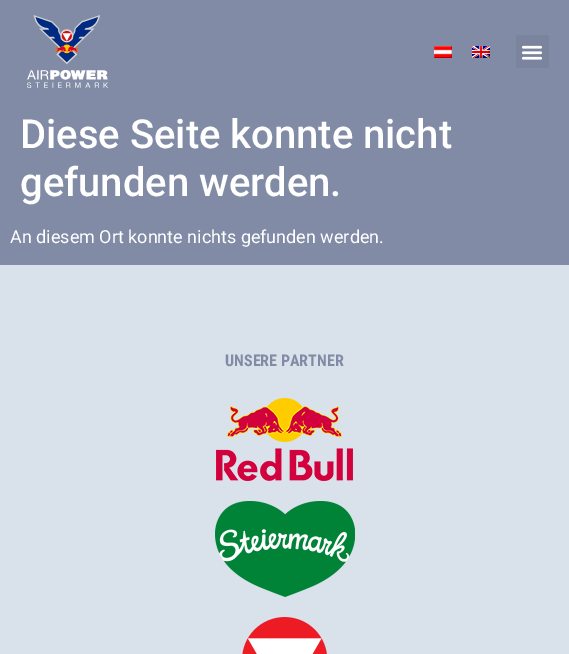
%!PS-Adobe-3.0
%%BoundingBox: 0 0 569 654
%%LanguageLevel: 3
%%Pages: 1
%%EndComments
%%BeginProlog
/setink { 3 { 255 div 3 1 roll } repeat setrgbcolor } def
/usefont { [ exch dup neg 0 0 3 -1 roll 0 0 ] selectfont } def
/drawtext { setink usefont moveto show } def
/fillbox { setink rectfill } def
/rrect { 5 dict begin { /r /h /w /y /x } { exch def } forall
  x r add y moveto x w add y 2 copy h add r arct x w add y h add x 1 index r arct
  x y h add x y r arct x y 2 copy exch w add exch r arct closepath end } def
/drawimage { 5 dict begin { /h /w /y /x /name } { exch def } forall
  gsave x y translate w h scale
  w h 8 [w 0 0 h 0 0] name (r) file false 3 colorimage grestore end } def
%%EndProlog
%%BeginSetup
<< /PageSize [569 654] >> setpagedevice
%%EndSetup
%%Page: 1 1
0 654 translate 1 -1 scale
4 setmiterlimit
0 0 569 654 129 139 165 fillbox
(assets/img1.rgb) 27 15 81 73 drawimage
(assets/img2.rgb) 434 46 18 12 drawimage
(assets/img3.rgb) 472 46 18 12 drawimage
123 132 157 setink
516 35 33 33 3 rrect fill
(assets/img4.rgb) 522 45 20 15 drawimage
(Diese Seite konnte nicht) 20 148 /Roboto-Medium 40 255 255 255 drawtext
(gefunden werden.) 20 196 /Roboto-Medium 40 255 255 255 drawtext
(An diesem Ort konnte nichts gefunden werden.) 10 243 /Roboto-Regular 18 255 255 255 drawtext
0 265 569 389 217 226 234 fillbox
(UNSERE PARTNER) 225 366 /RobotoCondensed-Bold 16 129 139 165 drawtext
(assets/img5.rgb) 216 398 137 83 drawimage
(assets/img6.rgb) 215 501 140 96 drawimage
(assets/img7.rgb) 242 617 85 37 drawimage
showpage
%%EOF
